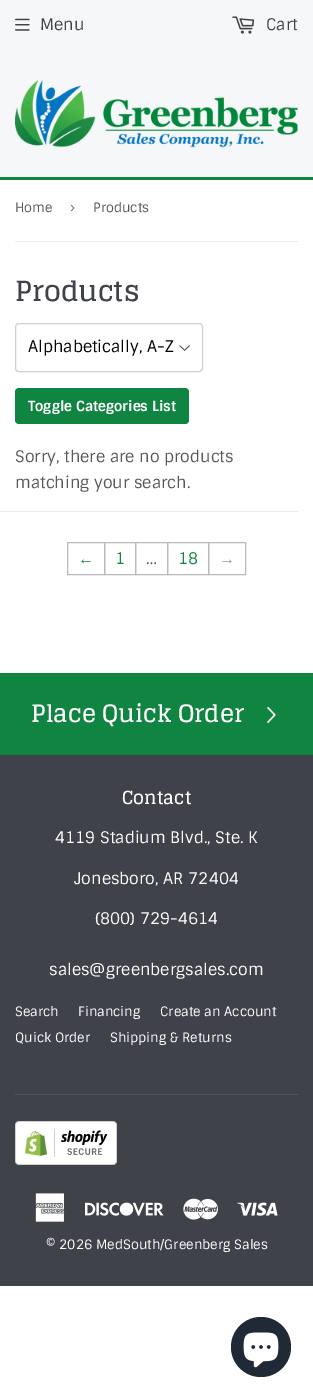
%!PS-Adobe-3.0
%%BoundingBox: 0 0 313 1398
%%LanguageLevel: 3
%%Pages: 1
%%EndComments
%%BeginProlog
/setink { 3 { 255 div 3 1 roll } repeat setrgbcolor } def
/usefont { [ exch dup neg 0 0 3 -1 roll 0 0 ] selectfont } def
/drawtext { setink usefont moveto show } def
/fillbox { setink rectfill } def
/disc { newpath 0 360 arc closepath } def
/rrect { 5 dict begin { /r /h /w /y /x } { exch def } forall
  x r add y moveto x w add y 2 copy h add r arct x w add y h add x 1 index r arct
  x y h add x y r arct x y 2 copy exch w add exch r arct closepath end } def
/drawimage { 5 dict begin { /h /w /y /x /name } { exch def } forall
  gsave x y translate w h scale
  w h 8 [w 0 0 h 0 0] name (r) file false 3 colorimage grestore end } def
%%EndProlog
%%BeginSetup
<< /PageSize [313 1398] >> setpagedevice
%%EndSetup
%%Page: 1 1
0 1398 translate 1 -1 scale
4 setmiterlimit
0 0 313 1398 255 255 255 fillbox
0 177 313 3 16 132 65 fillbox
0 0 313 177 246 247 248 fillbox
(assets/img1.rgb) 15 80 283 68 drawimage
(assets/img2.rgb) 15 18 15 13 drawimage
(Menu) 40 30 /Sintony-Regular 16 63 67 73 drawtext
(assets/img3.rgb) 232 16 23 18 drawimage
(Cart) 266 30 /Sintony-Regular 16 63 67 73 drawtext
15 241 283 1 236 236 236 fillbox
(Home) 15 212 /Sintony-Regular 13 88 88 88 drawtext
(›) 70 212 /LiberationSans-Regular 15 118 118 118 drawtext
(Products) 93 212 /Sintony-Regular 13 88 88 88 drawtext
(Products) 15 301 /Glegoo-Bold 27.75 63 67 73 drawtext
(assets/img4.rgb) 179 345 11 6 drawimage
208 208 208 setink
15.5 323.5 187 48 3.5 rrect stroke
(Alphabetically, A-Z) 28 352 /Sintony-Regular 16 0 0 0 drawtext
16 132 65 setink
15 388 174 36 4 rrect fill
(Toggle Categories List) 28 411 /Sintony-Bold 14 255 255 255 drawtext
(Sorry, there are no products) 15 462 /Sintony-Regular 16 88 88 88 drawtext
(matching your search.) 15 488 /Sintony-Regular 16 88 88 88 drawtext
0 511 298 1 236 236 236 fillbox
185 185 185 setink
67.5 542.5 37 32 rectstroke
(←) 78 564 /LiberationSans-Regular 16 16 132 65 drawtext
185 185 185 setink
104.5 542.5 31 32 rectstroke
(1) 115 564 /Sintony-Regular 16 16 132 65 drawtext
185 185 185 setink
135.5 542.5 32 32 rectstroke
(…) 146 564 /Sintony-Regular 16 88 88 88 drawtext
185 185 185 setink
167.5 542.5 41 32 rectstroke
(18) 178 564 /Sintony-Regular 16 16 132 65 drawtext
185 185 185 setink
208.5 542.5 37 32 rectstroke
(→) 219 564 /LiberationSans-Regular 16 153 153 153 drawtext
0 673 313 82 16 132 65 fillbox
(Place Quick Order) 31 722 /Glegoo-Bold 24 255 255 255 drawtext
(assets/img5.rgb) 267 707 9 16 drawimage
0 755 313 531 63 67 73 fillbox
(Contact) 122 804 /Glegoo-Bold 18 255 255 255 drawtext
(4119 Stadium Blvd., Ste. K) 55 843 /Sintony-Regular 16 255 255 255 drawtext
(Jonesboro, AR 72404) 74 884 /Sintony-Regular 16 255 255 255 drawtext
(\(800\) 729-4614) 95 924 /Sintony-Regular 16 255 255 255 drawtext
(sales@greenbergsales.com) 49 975 /Sintony-Regular 16 255 255 255 drawtext
(Search) 15 1016 /Sintony-Regular 13 255 255 255 drawtext
(Financing) 78 1016 /Sintony-Regular 13 255 255 255 drawtext
(Create an Account) 160 1016 /Sintony-Regular 13 255 255 255 drawtext
(Quick Order) 15 1042 /Sintony-Regular 13 255 255 255 drawtext
(Shipping & Returns) 110 1042 /Sintony-Regular 13 255 255 255 drawtext
15 1094 283 1 82 86 93 fillbox
(assets/img6.rgb) 15 1121 102 44 drawimage
(assets/img7.rgb) 35 1193 30 29 drawimage
(assets/img8.rgb) 85 1202 79 14 drawimage
(assets/img9.rgb) 183 1198 35 22 drawimage
(assets/img10.rgb) 237 1202 41 14 drawimage
(© 2026 MedSouth/Greenberg Sales) 46 1249 /Sintony-Regular 13 255 255 255 drawtext
32 42 54 setink
261 1347 30 disc fill
(assets/img11.rgb) 243 1332 36 36 drawimage
showpage
%%EOF
